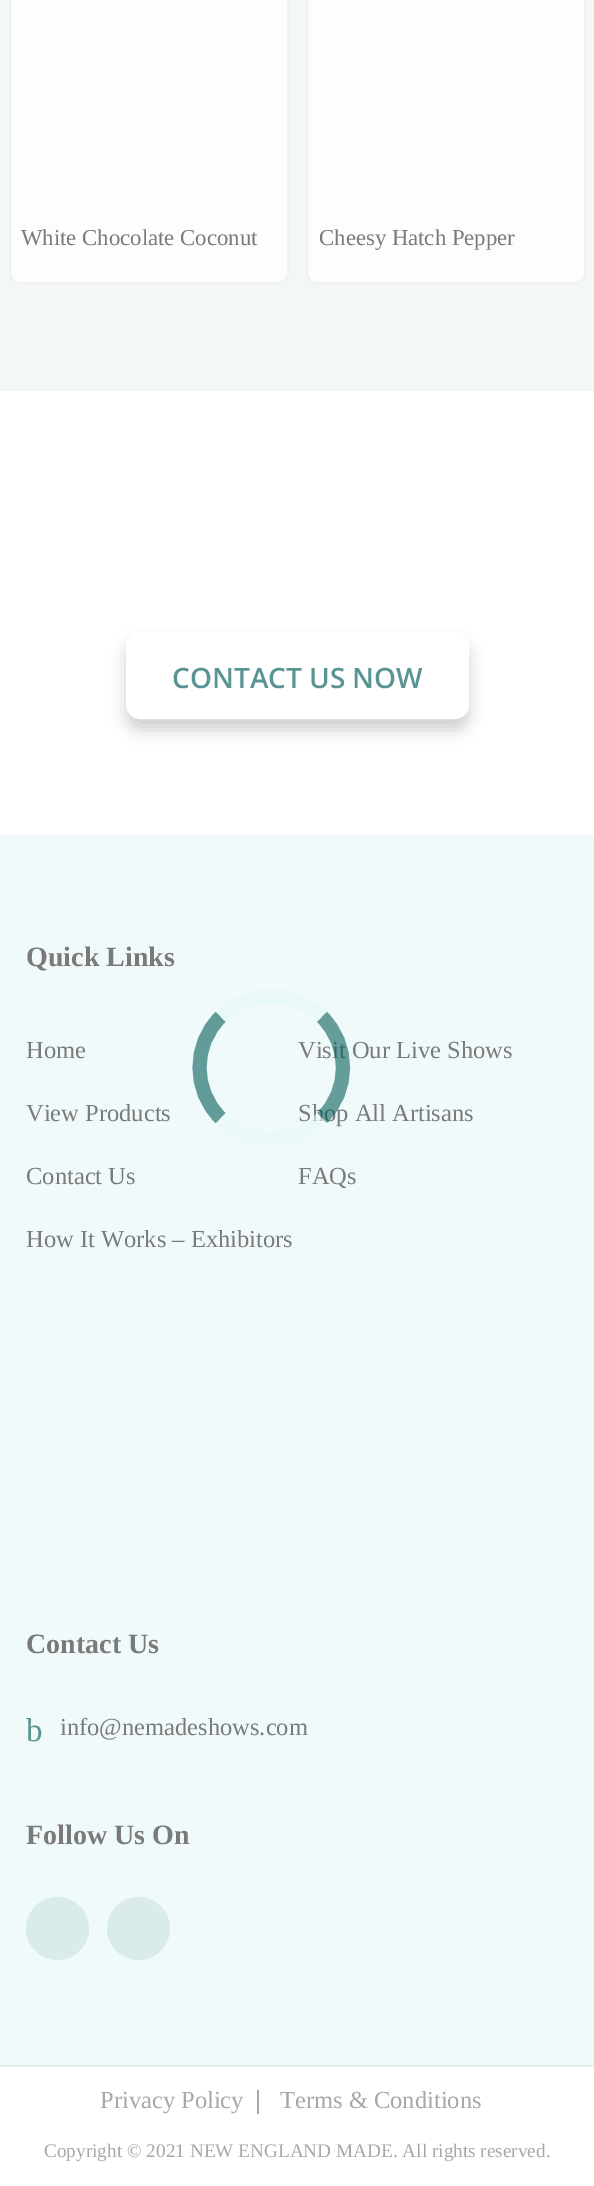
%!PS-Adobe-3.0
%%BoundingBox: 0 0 594 2186
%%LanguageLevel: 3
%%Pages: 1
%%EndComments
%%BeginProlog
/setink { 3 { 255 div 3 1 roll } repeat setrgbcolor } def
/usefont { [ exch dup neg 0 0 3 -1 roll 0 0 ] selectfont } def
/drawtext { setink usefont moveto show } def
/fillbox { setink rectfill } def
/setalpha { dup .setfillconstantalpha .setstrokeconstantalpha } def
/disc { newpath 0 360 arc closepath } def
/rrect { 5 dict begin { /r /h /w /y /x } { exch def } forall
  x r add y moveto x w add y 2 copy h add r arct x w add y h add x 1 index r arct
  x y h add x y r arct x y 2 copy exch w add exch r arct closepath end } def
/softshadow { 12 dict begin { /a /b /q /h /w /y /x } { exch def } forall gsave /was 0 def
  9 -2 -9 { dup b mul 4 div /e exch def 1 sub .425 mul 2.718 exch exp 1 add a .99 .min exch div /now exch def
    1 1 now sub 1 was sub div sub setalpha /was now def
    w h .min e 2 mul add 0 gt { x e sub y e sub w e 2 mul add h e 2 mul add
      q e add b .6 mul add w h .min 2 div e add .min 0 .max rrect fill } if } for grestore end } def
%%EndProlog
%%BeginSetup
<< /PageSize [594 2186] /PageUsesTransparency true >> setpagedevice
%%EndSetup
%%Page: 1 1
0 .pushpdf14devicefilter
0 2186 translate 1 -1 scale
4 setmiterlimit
0 0 594 2186 243 247 247 fillbox
253 253 253 setink
10 -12 278 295 10 rrect gsave fill grestore
241 241 241 setink
2 setlinewidth
stroke
(White Chocolate Coconut) 21 245 /LiberationSerif-Regular 22.75 122 122 122 drawtext
253 253 253 setink
307 -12 278 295 10 rrect gsave fill grestore
241 241 241 setink
stroke
(Cheesy Hatch Pepper) 319 245 /LiberationSerif-Regular 22.75 122 122 122 drawtext
0 389 594 1 236 236 236 fillbox
0 390 594 1796 255 255 255 fillbox
135 135 135 setink
126 642 343 88 14 8 0.4 softshadow
255 255 255 setink
128 634 339 83 12 rrect gsave fill grestore
4 setlinewidth
stroke
(CONTACT US NOW) 172 688 /OpenSans-SemiBold 28 89 147 146 drawtext
0 835 594 1230 241 250 250 fillbox
0 2065 594 2 224 240 240 fillbox
(Quick Links) 26 966 /LiberationSerif-Bold 28 122 122 122 drawtext
(Home) 26 1058 /LiberationSerif-Regular 24.5 122 122 122 drawtext
(Visit Our Live Shows) 298 1058 /LiberationSerif-Regular 24.5 122 122 122 drawtext
(View Products) 26 1121 /LiberationSerif-Regular 24.5 122 122 122 drawtext
(Shop All Artisans) 298 1121 /LiberationSerif-Regular 24.5 122 122 122 drawtext
(Contact Us) 26 1184 /LiberationSerif-Regular 24.5 122 122 122 drawtext
(FAQs) 298 1184 /LiberationSerif-Regular 24.5 122 122 122 drawtext
(How It Works – Exhibitors) 26 1247 /LiberationSerif-Regular 24.5 122 122 122 drawtext
(Contact Us) 26 1653 /LiberationSerif-Bold 28 122 122 122 drawtext
(b) 26 1741 /LiberationSerif-Regular 33 89 147 146 drawtext
(info@nemadeshows.com) 60 1735 /LiberationSerif-Regular 24.5 122 122 122 drawtext
(Follow Us On) 26 1844 /LiberationSerif-Bold 28 122 122 122 drawtext
218 235 235 setink
57.5 1928.5 31.5 disc fill
138.5 1928.5 31.5 disc fill
257 2090 2 24 167 167 167 fillbox
(Privacy Policy) 100 2108 /LiberationSerif-Regular 24.5 167 167 167 drawtext
(Terms & Conditions) 280 2108 /LiberationSerif-Regular 24.5 167 167 167 drawtext
(Copyright © 2021 NEW ENGLAND MADE. All rights reserved.) 44 2157 /LiberationSerif-Regular 19.25 167 167 167 drawtext
233 248 248 setink
14 setlinewidth
220.5 1017 moveto 248.5 989 294 989 322 1017 curveto stroke
0.58 setalpha
0 89 87 setink
322 1017 moveto 350 1044.5 350 1090.5 322 1118 curveto stroke
233 248 248 setink
322 1118 moveto 294 1146 248.5 1146 220.5 1118 curveto stroke
1 setalpha
97 155 154 setink
220.5 1118 moveto 192.5 1090.5 192.5 1044.5 220.5 1017 curveto stroke
.poppdf14devicefilter showpage
%%EOF
